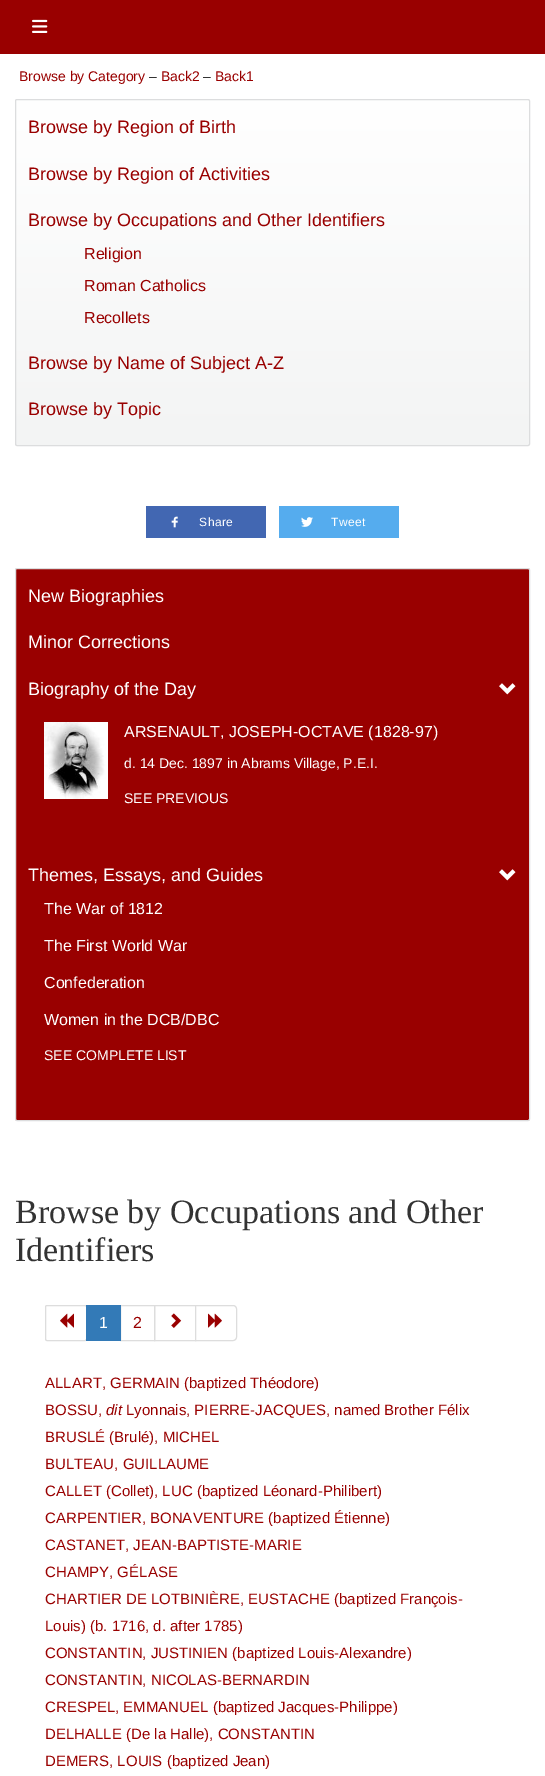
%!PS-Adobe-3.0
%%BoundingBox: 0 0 545 1776
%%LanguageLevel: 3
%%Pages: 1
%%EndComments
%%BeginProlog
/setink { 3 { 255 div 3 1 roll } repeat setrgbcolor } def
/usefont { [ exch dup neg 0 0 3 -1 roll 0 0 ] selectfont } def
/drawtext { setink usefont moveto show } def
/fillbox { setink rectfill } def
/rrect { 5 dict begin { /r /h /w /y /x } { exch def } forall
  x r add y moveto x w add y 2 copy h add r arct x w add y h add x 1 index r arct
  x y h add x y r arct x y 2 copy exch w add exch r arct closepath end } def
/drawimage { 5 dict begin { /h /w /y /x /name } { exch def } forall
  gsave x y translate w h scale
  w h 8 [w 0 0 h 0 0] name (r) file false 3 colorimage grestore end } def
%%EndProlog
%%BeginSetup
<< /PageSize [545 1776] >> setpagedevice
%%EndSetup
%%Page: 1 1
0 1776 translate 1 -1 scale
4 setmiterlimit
0 0 545 1776 255 255 255 fillbox
0 0 545 54 153 0 0 fillbox
(assets/img1.rgb) 32 19 16 14 drawimage
(Browse by Category) 19 81 /LiberationSans-Regular 14 153 0 0 drawtext
(–) 149 81 /LiberationSans-Regular 14 51 51 51 drawtext
(Back2) 161 81 /LiberationSans-Regular 14 153 0 0 drawtext
(–) 203 81 /LiberationSans-Regular 14 51 51 51 drawtext
(Back1) 215 81 /LiberationSans-Regular 14 153 0 0 drawtext
gsave
15 99 515 347 2 rrect clip newpath
gsave 15 100 moveto 530 100 lineto 530 445 lineto 15 445 lineto closepath clip newpath
<< /ShadingType 2 /ColorSpace /DeviceRGB /Coords [273 100 273 445] /Extend [true true] /Function << /FunctionType 2 /Domain [0 1] /C0 [1 1 1] /C1 [0.953 0.957 0.957] /N 1 >> >> shfill grestore
grestore
220 221 222 setink
15.5 99.5 514 346 1.5 rrect stroke
(Browse by Region of Birth) 28 133 /LiberationSans-Regular 18 153 0 0 drawtext
(Browse by Region of Activities) 28 180 /LiberationSans-Regular 18 153 0 0 drawtext
(Browse by Occupations and Other Identifiers) 28 226 /LiberationSans-Regular 18 153 0 0 drawtext
(Religion) 84 259 /LiberationSans-Regular 16 153 0 0 drawtext
(Roman Catholics) 84 291 /LiberationSans-Regular 16 153 0 0 drawtext
(Recollets) 84 323 /LiberationSans-Regular 16 153 0 0 drawtext
(Browse by Name of Subject A-Z) 28 369 /LiberationSans-Regular 18 153 0 0 drawtext
(Browse by Topic) 28 415 /LiberationSans-Regular 18 153 0 0 drawtext
146 506 120 32 66 103 178 fillbox
(assets/img2.rgb) 171 516 7 12 drawimage
/LiberationSans-Regular 12 usefont
255 255 255 setink
199 526 moveto 0.5 0 (Share) ashow
279 506 120 32 85 172 238 fillbox
(assets/img3.rgb) 301 517 12 10 drawimage
255 255 255 setink
331 526 moveto 0.5 0 (Tweet) ashow
153 0 0 setink
15.5 568.5 514 552 1.5 rrect gsave fill grestore
220 221 222 setink
stroke
(New Biographies) 28 602 /LiberationSans-Regular 18 255 255 255 drawtext
(Minor Corrections) 28 648 /LiberationSans-Regular 18 255 255 255 drawtext
(Biography of the Day) 28 695 /LiberationSans-Regular 18 255 255 255 drawtext
(assets/img4.rgb) 499 683 17 12 drawimage
(assets/img5.rgb) 44 722 64 77 drawimage
(ARSENAULT, JOSEPH-OCTAVE \(1828-97\)) 124 737 /LiberationSans-Regular 16 255 255 255 drawtext
(d. 14 Dec. 1897 in Abrams Village, P.E.I.) 124 768 /LiberationSans-Regular 14 255 255 255 drawtext
(SEE PREVIOUS) 124 803 /LiberationSans-Regular 14 255 255 255 drawtext
(Themes, Essays, and Guides) 28 881 /LiberationSans-Regular 18 255 255 255 drawtext
(assets/img4.rgb) 499 869 17 12 drawimage
(The War of 1812) 44 914 /LiberationSans-Regular 16 255 255 255 drawtext
(The First World War) 44 951 /LiberationSans-Regular 16 255 255 255 drawtext
(Confederation) 44 988 /LiberationSans-Regular 16 255 255 255 drawtext
(Women in the DCB/DBC) 44 1025 /LiberationSans-Regular 16 255 255 255 drawtext
(SEE COMPLETE LIST) 44 1060 /LiberationSans-Regular 14 255 255 255 drawtext
(Browse by Occupations and Other) 15 1223 /LiberationSerif-Regular 34 51 51 51 drawtext
(Identifiers) 15 1261 /LiberationSerif-Regular 34 51 51 51 drawtext
221 221 221 setink
45.5 1305.5 41 35 1.5 rrect stroke
(assets/img6.rgb) 60 1313 14 15 drawimage
120.5 1305.5 34 35 rectstroke
86 1305 35 36 51 122 183 fillbox
(1) 99 1328 /LiberationSans-Regular 16 255 255 255 drawtext
(2) 133 1328 /LiberationSans-Regular 16 153 0 0 drawtext
221 221 221 setink
154.5 1305.5 41 35 rectstroke
(assets/img7.rgb) 171 1313 11 15 drawimage
255 255 255 setink
195.5 1305.5 moveto 233 1305.5 lineto 235 1305.5 236.5 1307 236.5 1309 curveto 236.5 1337 lineto 236.5 1339 235 1340.5 233 1340.5 curveto 195.5 1340.5 lineto closepath gsave fill grestore
221 221 221 setink
stroke
(assets/img8.rgb) 208 1313 14 15 drawimage
(ALLART, GERMAIN \(baptized Théodore\)) 45 1388 /LiberationSans-Regular 15 153 0 0 drawtext
(BOSSU,) 45 1415 /LiberationSans-Regular 15 153 0 0 drawtext
(dit) 106 1415 /LiberationSans-Italic 15 153 0 0 drawtext
(Lyonnais, PIERRE-JACQUES, named Brother Félix) 126 1415 /LiberationSans-Regular 15 153 0 0 drawtext
(BRUSLÉ \(Brulé\), MICHEL) 45 1442 /LiberationSans-Regular 15 153 0 0 drawtext
(BULTEAU, GUILLAUME) 45 1469 /LiberationSans-Regular 15 153 0 0 drawtext
(CALLET \(Collet\), LUC \(baptized Léonard-Philibert\)) 45 1496 /LiberationSans-Regular 15 153 0 0 drawtext
(CARPENTIER, BONAVENTURE \(baptized Étienne\)) 45 1523 /LiberationSans-Regular 15 153 0 0 drawtext
(CASTANET, JEAN-BAPTISTE-MARIE) 45 1550 /LiberationSans-Regular 15 153 0 0 drawtext
(CHAMPY, GÉLASE) 45 1577 /LiberationSans-Regular 15 153 0 0 drawtext
(CHARTIER DE LOTBINIÈRE, EUSTACHE \(baptized François-) 45 1604 /LiberationSans-Regular 15 153 0 0 drawtext
(Louis\) \(b. 1716, d. after 1785\)) 45 1631 /LiberationSans-Regular 15 153 0 0 drawtext
(CONSTANTIN, JUSTINIEN \(baptized Louis-Alexandre\)) 45 1658 /LiberationSans-Regular 15 153 0 0 drawtext
(CONSTANTIN, NICOLAS-BERNARDIN) 45 1685 /LiberationSans-Regular 15 153 0 0 drawtext
(CRESPEL, EMMANUEL \(baptized Jacques-Philippe\)) 45 1712 /LiberationSans-Regular 15 153 0 0 drawtext
(DELHALLE \(De la Halle\), CONSTANTIN) 45 1739 /LiberationSans-Regular 15 153 0 0 drawtext
(DEMERS, LOUIS \(baptized Jean\)) 45 1766 /LiberationSans-Regular 15 153 0 0 drawtext
showpage
%%EOF
